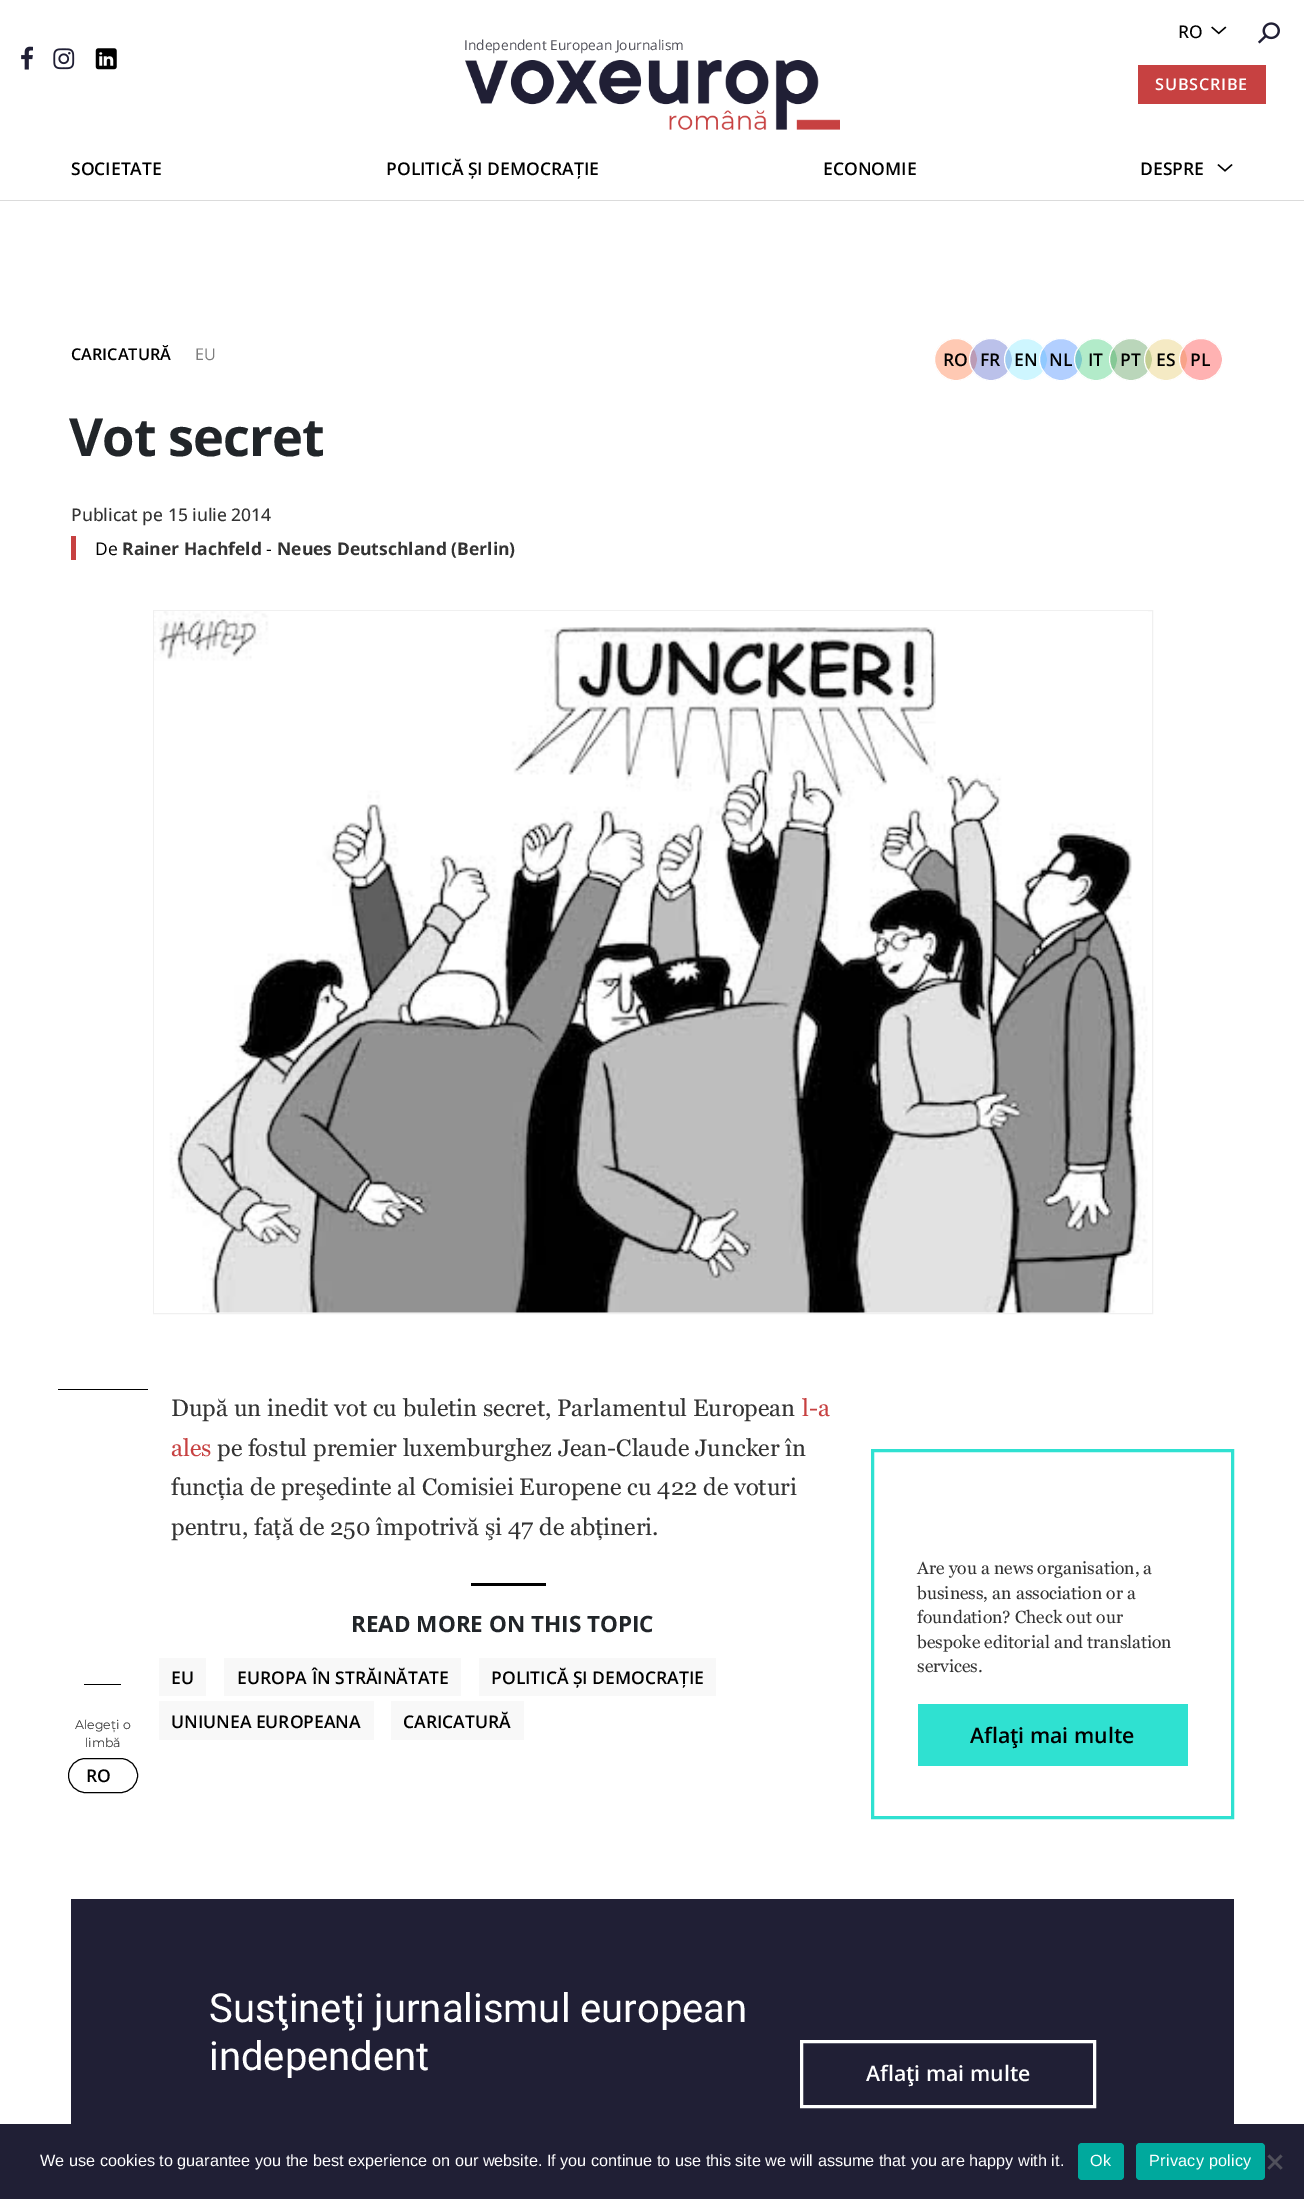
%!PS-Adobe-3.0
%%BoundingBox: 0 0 1304 2199
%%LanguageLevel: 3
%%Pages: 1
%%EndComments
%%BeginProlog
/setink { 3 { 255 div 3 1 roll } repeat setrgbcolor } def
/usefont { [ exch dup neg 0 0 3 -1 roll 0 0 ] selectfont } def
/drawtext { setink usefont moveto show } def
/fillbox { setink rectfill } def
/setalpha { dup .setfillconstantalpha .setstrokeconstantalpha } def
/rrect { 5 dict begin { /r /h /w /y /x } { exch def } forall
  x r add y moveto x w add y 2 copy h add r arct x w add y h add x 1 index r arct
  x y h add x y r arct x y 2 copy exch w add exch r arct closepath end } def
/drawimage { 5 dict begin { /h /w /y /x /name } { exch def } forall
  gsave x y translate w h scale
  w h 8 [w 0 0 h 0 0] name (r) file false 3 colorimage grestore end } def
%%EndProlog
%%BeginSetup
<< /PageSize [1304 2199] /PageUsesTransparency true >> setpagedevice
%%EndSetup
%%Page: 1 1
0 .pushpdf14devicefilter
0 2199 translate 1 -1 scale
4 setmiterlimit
0 0 1304 2199 255 255 255 fillbox
(assets/img1.rgb) 1211 26 16 9 drawimage
(RO) 1178 38 /OpenSans-Medium 17.5 0 0 0 drawtext
(assets/img2.rgb) 1258 22 22 22 drawimage
(assets/img3.rgb) 21 46 12 24 drawimage
(assets/img4.rgb) 53 48 22 22 drawimage
(assets/img5.rgb) 95 48 22 22 drawimage
(Independent European Journalism) 464 50 /OpenSans-Regular 13.75 78 78 87 drawtext
(assets/img6.rgb) 465 60 375 70 drawimage
1138 65 128 39 199 65 65 fillbox
/OpenSans-SemiBold 16.25 usefont
255 255 255 setink
1155 90 moveto 0.75 0 (SUBSCRIBE) ashow
0 200 1304 1 219 219 219 fillbox
(SOCIETATE) 71 175 /OpenSans-SemiBold 17.5 0 0 0 drawtext
(POLITICĂ ȘI DEMOCRAȚIE) 386 175 /OpenSans-SemiBold 17.5 0 0 0 drawtext
(ECONOMIE) 823 175 /OpenSans-SemiBold 17.5 0 0 0 drawtext
(DESPRE) 1140 175 /OpenSans-SemiBold 17.5 0 0 0 drawtext
(assets/img7.rgb) 1217 164 16 8 drawimage
(CARICATURĂ) 71 360 /OpenSans-SemiBold 16.25 0 0 0 drawtext
(EU) 195 360 /OpenSans-Regular 16.25 125 125 125 drawtext
255 201 179 setink
934.5 338.5 43 42 21 rrect gsave fill grestore
255 255 255 setink
stroke
(RO) 943 366 /OpenSans-SemiBold 17.5 0 0 0 drawtext
0.3 setalpha
30 50 187 setink
969.5 338.5 43 42 21 rrect fill
1 setalpha
255 255 255 setink
969.5 338.5 43 42 21 rrect stroke
(FR) 980 366 /OpenSans-SemiBold 17.5 0 0 0 drawtext
0.3 setalpha
94 226 255 setink
1004.5 338.5 43 42 21 rrect fill
1 setalpha
255 255 255 setink
1004.5 338.5 43 42 21 rrect stroke
(EN) 1014 366 /OpenSans-SemiBold 17.5 0 0 0 drawtext
0.3 setalpha
0 97 255 setink
1039.5 338.5 43 42 21 rrect fill
1 setalpha
255 255 255 setink
1039.5 338.5 43 42 21 rrect stroke
(NL) 1049 366 /OpenSans-SemiBold 17.5 0 0 0 drawtext
0.3 setalpha
0 190 76 setink
1074.5 338.5 43 42 21 rrect fill
1 setalpha
255 255 255 setink
1074.5 338.5 43 42 21 rrect stroke
(IT) 1088 366 /OpenSans-SemiBold 17.5 0 0 0 drawtext
0.3 setalpha
28 118 28 setink
1109.5 338.5 43 42 21 rrect fill
1 setalpha
255 255 255 setink
1109.5 338.5 43 42 21 rrect stroke
(PT) 1120 366 /OpenSans-SemiBold 17.5 0 0 0 drawtext
0.3 setalpha
223 186 58 setink
1144.5 338.5 43 42 21 rrect fill
1 setalpha
255 255 255 setink
1144.5 338.5 43 42 21 rrect stroke
(ES) 1156 366 /OpenSans-SemiBold 17.5 0 0 0 drawtext
0.3 setalpha
255 0 0 setink
1179.5 338.5 43 42 21 rrect fill
1 setalpha
255 255 255 setink
1179.5 338.5 43 42 21 rrect stroke
(PL) 1190 366 /OpenSans-SemiBold 17.5 0 0 0 drawtext
/OpenSans-Bold 52.5 usefont
33 37 41 setink
69 456 moveto -1 0 (Vot secret) ashow
(Publicat pe 15 iulie 2014) 71 521 /OpenSans-Medium 17.5 51 51 51 drawtext
71 536 5 24 199 65 65 fillbox
(De) 95 555 /OpenSans-Regular 17.5 0 0 0 drawtext
(Rainer Hachfeld) 122 555 /OpenSans-Bold 17.5 51 51 51 drawtext
(-) 266 555 /OpenSans-Regular 17.5 0 0 0 drawtext
(Neues Deutschland \(Berlin\)) 277 555 /OpenSans-Bold 17.5 51 51 51 drawtext
240 240 240 setink
153.5 610.5 999 703 rectstroke
(assets/img8.rgb) 154 611 994 702 drawimage
58 1389 90 1 0 0 0 fillbox
84 1684 37 1 0 0 0 fillbox
(Alegeți o) 75 1729 /Montserrat-Regular 12.5 51 51 51 drawtext
(limbă) 85 1747 /Montserrat-Regular 12.5 51 51 51 drawtext
0 0 0 setink
68.5 1758.5 69 34 17 rrect stroke
(RO) 86 1782 /OpenSans-SemiBold 17.5 0 0 0 drawtext
(După un inedit vot cu buletin secret, Parlamentul European) 171 1416 /Georgia-Regular 23.75 51 51 51 drawtext
(l-a) 802 1416 /Georgia-Regular 23.75 199 65 65 drawtext
(ales) 171 1456 /Georgia-Regular 23.75 199 65 65 drawtext
(pe fostul premier luxemburghez Jean-Claude Juncker în) 217 1456 /Georgia-Regular 23.75 51 51 51 drawtext
(funcţia de preşedinte al Comisiei Europene cu 422 de voturi) 171 1495 /Georgia-Regular 23.75 51 51 51 drawtext
(pentru, faţă de 250 împotrivă şi 47 de abţineri.) 171 1535 /Georgia-Regular 23.75 51 51 51 drawtext
471 1583 75 3 0 0 0 fillbox
(READ MORE ON THIS TOPIC) 351 1632 /OpenSans-Bold 22.5 33 37 41 drawtext
171 1658 35 38 248 248 248 fillbox
(EU) 171 1684 /OpenSans-SemiBold 17.5 0 0 0 drawtext
159 1658 12 38 248 248 248 fillbox
236 1658 225 38 248 248 248 fillbox
(EUROPA ÎN STRĂINĂTATE) 237 1684 /OpenSans-SemiBold 17.5 0 0 0 drawtext
224 1658 12 38 248 248 248 fillbox
491 1658 225 38 248 248 248 fillbox
(POLITICĂ ȘI DEMOCRAȚIE) 491 1684 /OpenSans-SemiBold 17.5 0 0 0 drawtext
479 1658 12 38 248 248 248 fillbox
171 1701 190 39 248 248 248 fillbox
(UNIUNEA EUROPEANA) 171 1728 /OpenSans-SemiBold 17.5 0 0 0 drawtext
248 248 248 setink
159 1701 moveto 159 1740 lineto 171 1740 lineto 171 1701 lineto 349 1701 lineto closepath fill
184 1701 moveto 361 1701 lineto 361 1740 lineto 374 1740 lineto 374 1701 lineto closepath fill
404 1701 107 39 248 248 248 fillbox
(CARICATURĂ) 403 1728 /OpenSans-SemiBold 17.5 0 0 0 drawtext
248 248 248 setink
391 1701 moveto 391 1740 lineto 404 1740 lineto 404 1701 lineto 499 1701 lineto closepath fill
416 1701 moveto 511 1701 lineto 511 1740 lineto 524 1740 lineto 524 1701 lineto closepath fill
47 225 209 setink
3 setlinewidth
872.5 1450.5 360 367 rectstroke
(Are you a news organisation, a) 917 1574 /Georgia-Regular 17.5 51 51 51 drawtext
(business, an association or a) 917 1599 /Georgia-Regular 17.5 51 51 51 drawtext
(foundation? Check out our) 917 1623 /Georgia-Regular 17.5 51 51 51 drawtext
(bespoke editorial and translation) 917 1648 /Georgia-Regular 17.5 51 51 51 drawtext
(services.) 917 1672 /Georgia-Regular 17.5 51 51 51 drawtext
918 1704 270 62 47 225 209 fillbox
(Aflaţi mai multe) 970 1743 /OpenSans-SemiBold 21.25 0 0 0 drawtext
71 1899 1163 225 32 31 53 fillbox
(Susţineţi jurnalismul european) 209 2022 /Roboto-Regular 40 255 255 255 drawtext
(independent) 209 2070 /Roboto-Regular 40 255 255 255 drawtext
801.5 2041.5 293 65 rectstroke
(Aflaţi mai multe) 866 2081 /OpenSans-SemiBold 21.25 255 255 255 drawtext
0 2124 1304 75 32 31 53 fillbox
(We use cookies to guarantee you the best experience on our website. If you continue to use this site we will assume that you are happy with it.) 40 2166 /LiberationSans-Regular 16.25 255 255 255 drawtext
0 169 157 setink
1078 2143 46 37 4 rrect fill
255 255 255 setink
1090 2166 moveto 0.25 0 (Ok) ashow
0 169 157 setink
1136 2143 129 37 4 rrect fill
255 255 255 setink
1149 2166 moveto 0.25 0 (Privacy policy) ashow
80 80 91 setink
1280.5 2154.5 moveto 1282.5 2156.5 lineto 1269.5 2169.5 lineto 1267.5 2168 lineto closepath fill
1267.5 2156.5 moveto 1269.5 2154.5 lineto 1282.5 2168 lineto 1280.5 2169.5 lineto closepath fill
.poppdf14devicefilter showpage
%%EOF
